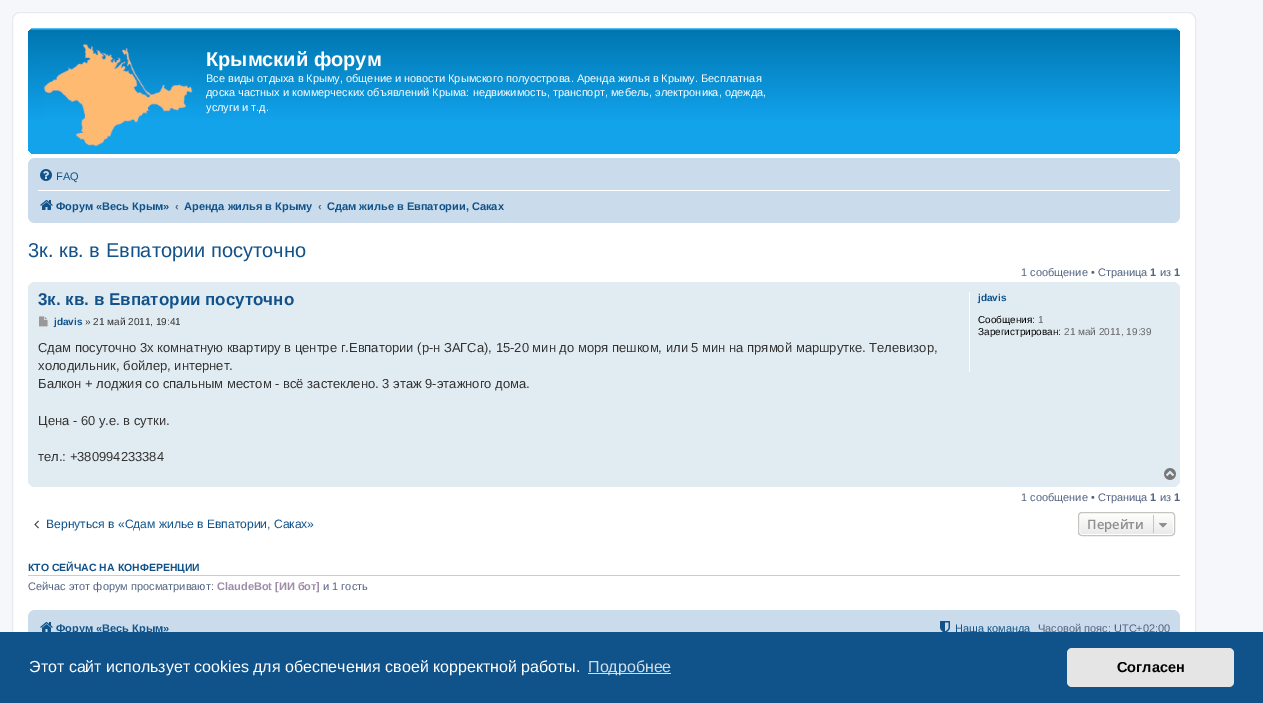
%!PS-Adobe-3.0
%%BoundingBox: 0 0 1263 703
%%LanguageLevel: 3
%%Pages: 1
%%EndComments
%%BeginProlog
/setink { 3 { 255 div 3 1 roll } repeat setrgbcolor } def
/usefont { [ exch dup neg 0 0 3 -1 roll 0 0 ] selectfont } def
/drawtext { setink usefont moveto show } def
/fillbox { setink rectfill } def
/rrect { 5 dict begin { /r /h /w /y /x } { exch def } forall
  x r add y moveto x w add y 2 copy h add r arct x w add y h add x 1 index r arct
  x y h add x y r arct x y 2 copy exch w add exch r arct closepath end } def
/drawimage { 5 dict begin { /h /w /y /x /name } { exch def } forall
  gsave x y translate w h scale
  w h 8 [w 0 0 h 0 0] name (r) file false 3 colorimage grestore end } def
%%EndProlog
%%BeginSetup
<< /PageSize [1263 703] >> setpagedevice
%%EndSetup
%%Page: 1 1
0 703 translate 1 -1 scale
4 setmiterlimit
0 0 1263 703 245 247 250 fillbox
255 255 255 setink
12.5 12.5 1183 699 7.5 rrect gsave fill grestore
230 233 237 setink
stroke
gsave 28 28 1152 126 7 rrect clip newpath
<< /ShadingType 2 /ColorSpace /DeviceRGB /Coords [604 28 604 154] /Extend [true true] /Function << /FunctionType 3 /Domain [0 1] /Functions [<< /FunctionType 2 /Domain [0 1] /C0 [0.416 0.808 1] /C1 [0 0.463 0.694] /N 1 >> << /FunctionType 2 /Domain [0 1] /C0 [0 0.463 0.694] /C1 [0.071 0.639 0.922] /N 1 >> << /FunctionType 2 /Domain [0 1] /C0 [0.071 0.639 0.922] /C1 [0.071 0.639 0.922] /N 1 >>] /Bounds [0.02 0.73] /Encode [0 1 0 1 0 1] >> >> shfill grestore
(assets/img1.rgb) 43 43 150 104 drawimage
(Крымский форум) 206 66 /LiberationSans-Bold 20 255 255 255 drawtext
(Все виды отдыха в Крыму, общение и новости Крымского полуострова. Аренда жилья в Крыму. Бесплатная) 206 82 /LiberationSans-Regular 11 255 255 255 drawtext
(доска частных и коммерческих объявлений Крыма: недвижимость, транспорт, мебель, электроника, одежда,) 206 96 /LiberationSans-Regular 11 255 255 255 drawtext
(услуги и т.д.) 206 111 /LiberationSans-Regular 11 255 255 255 drawtext
202 220 235 setink
28 158 1152 65 7 rrect fill
(assets/img2.rgb) 40 169 12 12 drawimage
(FAQ) 56 180 /LiberationSans-Regular 11 16 82 137 drawtext
38 190 1132 1 255 255 255 fillbox
(assets/img3.rgb) 40 200 13 10 drawimage
(Форум «Весь Крым») 56 210 /LiberationSans-Bold 11 16 82 137 drawtext
(‹) 175 210 /LiberationSans-Bold 11 83 100 130 drawtext
(Аренда жилья в Крыму) 184 210 /LiberationSans-Bold 11 16 82 137 drawtext
(‹) 318 210 /LiberationSans-Bold 11 83 100 130 drawtext
(Сдам жилье в Евпатории, Саках) 327 210 /LiberationSans-Bold 11 16 82 137 drawtext
(3к. кв. в Евпатории посуточно) 28 257 /LiberationSans-Regular 20 16 82 137 drawtext
(1 сообщение • Страница) 1021 276 /LiberationSans-Regular 11 83 100 130 drawtext
(1) 1150 276 /LiberationSans-Bold 11 83 100 130 drawtext
(из) 1160 276 /LiberationSans-Regular 11 83 100 130 drawtext
(1) 1174 276 /LiberationSans-Bold 11 83 100 130 drawtext
225 235 242 setink
28 282 1152 205 7 rrect fill
(3к. кв. в Евпатории посуточно) 38 305 /LiberationSans-Bold 17 16 82 137 drawtext
(assets/img4.rgb) 39 316 9 11 drawimage
(jdavis) 54 325 /LiberationSans-Bold 10 16 82 137 drawtext
(» 21 май 2011, 19:41) 85 325 /LiberationSans-Regular 10 51 51 51 drawtext
(Сдам посуточно 3х комнатную квартиру в центре г.Евпатории \(р-н ЗАГСа\), 15-20 мин до моря пешком, или 5 мин на прямой маршрутке. Телевизор,) 38 352 /LiberationSans-Regular 13 51 51 51 drawtext
(холодильник, бойлер, интернет.) 38 370 /LiberationSans-Regular 13 51 51 51 drawtext
(Балкон + лоджия со спальным местом - всё застеклено. 3 этаж 9-этажного дома.) 38 388 /LiberationSans-Regular 13 51 51 51 drawtext
(Цена - 60 у.е. в сутки.) 38 425 /LiberationSans-Regular 13 51 51 51 drawtext
(тел.: +380994233384) 38 461 /LiberationSans-Regular 13 51 51 51 drawtext
969 292 1 80 255 255 255 fillbox
(jdavis) 978 301 /LiberationSans-Bold 10 16 82 137 drawtext
(Сообщения:) 978 323 /LiberationSans-Regular 10 0 0 0 drawtext
(1) 1038 323 /LiberationSans-Regular 10 102 102 102 drawtext
(Зарегистрирован:) 978 335 /LiberationSans-Regular 10 0 0 0 drawtext
(21 май 2011, 19:39) 1064 335 /LiberationSans-Regular 10 102 102 102 drawtext
(assets/img5.rgb) 1164 468 12 12 drawimage
(1 сообщение • Страница) 1021 501 /LiberationSans-Regular 11 83 100 130 drawtext
(1) 1150 501 /LiberationSans-Bold 11 83 100 130 drawtext
(из) 1160 501 /LiberationSans-Regular 11 83 100 130 drawtext
(1) 1174 501 /LiberationSans-Bold 11 83 100 130 drawtext
(assets/img6.rgb) 34 520 5 9 drawimage
(Вернуться в «Сдам жилье в Евпатории, Саках») 46 528 /LiberationSans-Regular 12.1 16 82 137 drawtext
gsave
1078 512 97 24 4 rrect clip newpath
gsave 1078 513 moveto 1175 513 lineto 1175 535 lineto 1078 535 lineto closepath clip newpath
<< /ShadingType 2 /ColorSpace /DeviceRGB /Coords [1127 513 1127 535] /Extend [true true] /Function << /FunctionType 2 /Domain [0 1] /C0 [1 1 1] /C1 [0.914 0.914 0.914] /N 1 >> >> shfill grestore
grestore
255 255 255 setink
1079.5 513.5 94 21 2.5 rrect stroke
199 195 191 setink
1078.5 512.5 96 23 3.5 rrect stroke
(Перейти) 1087 529 /OpenSans-SemiBold 13 143 143 143 drawtext
1153 515 1 18 199 195 191 fillbox
(assets/img7.rgb) 1159 523 8 5 drawimage
28 575 1152 1 204 204 204 fillbox
(КТО СЕЙЧАС НА КОНФЕРЕНЦИИ) 28 571 /LiberationSans-Bold 10.5 16 82 137 drawtext
(Сейчас этот форум просматривают:) 28 590 /LiberationSans-Regular 11 83 100 130 drawtext
(ClaudeBot [ИИ бот]) 217 590 /LiberationSans-Bold 11 158 141 167 drawtext
(и 1 гость) 323 590 /LiberationSans-Regular 11 83 100 130 drawtext
202 220 235 setink
28 610 1152 35 7 rrect fill
(assets/img3.rgb) 40 622 13 10 drawimage
(Форум «Весь Крым») 56 632 /LiberationSans-Bold 11 16 82 137 drawtext
(assets/img8.rgb) 940 621 10 11 drawimage
(Наша команда) 955 632 /LiberationSans-Regular 11 16 82 137 drawtext
(Часовой пояс: UTC+02:00) 1038 632 /LiberationSans-Regular 11 83 100 130 drawtext
0 632 1263 71 15 83 138 fillbox
(Этот сайт использует cookies для обеспечения своей корректной работы.) 29 672 /LiberationSans-Regular 16 255 255 255 drawtext
588 673 83 1 207 221 232 fillbox
(Подробнее) 588 672 /LiberationSans-Regular 16 207 221 232 drawtext
229 229 229 setink
1067 648 167 39 5 rrect fill
(Согласен) 1117 672 /LiberationSans-Bold 14.5 0 0 0 drawtext
showpage
%%EOF
